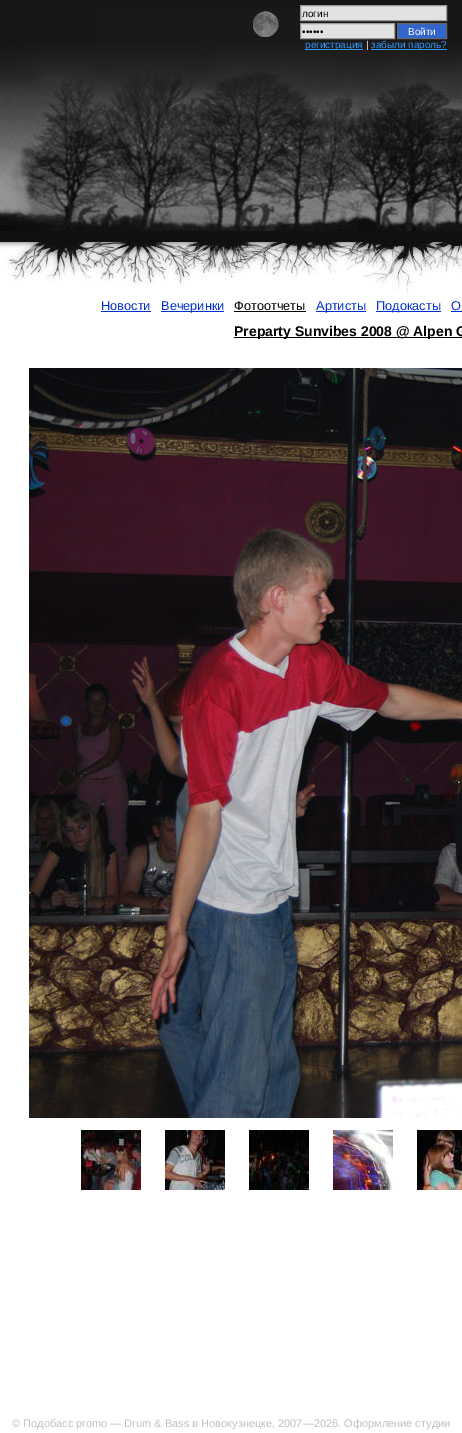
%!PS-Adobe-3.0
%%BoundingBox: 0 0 462 1433
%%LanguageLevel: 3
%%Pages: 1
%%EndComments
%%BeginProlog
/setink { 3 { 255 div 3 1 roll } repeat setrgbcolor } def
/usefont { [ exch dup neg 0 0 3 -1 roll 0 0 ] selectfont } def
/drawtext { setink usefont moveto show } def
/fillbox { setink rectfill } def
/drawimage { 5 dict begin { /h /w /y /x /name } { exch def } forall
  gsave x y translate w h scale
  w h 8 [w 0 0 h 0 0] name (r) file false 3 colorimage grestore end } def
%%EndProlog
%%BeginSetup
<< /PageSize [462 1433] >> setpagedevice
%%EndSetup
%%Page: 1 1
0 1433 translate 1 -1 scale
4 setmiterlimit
0 0 462 1433 255 255 255 fillbox
(assets/img1.rgb) 0 0 462 8 drawimage
(assets/img2.rgb) 0 8 462 285 drawimage
226 226 226 setink
300.5 5.5 moveto 446.5 5.5 lineto 446.5 20.5 lineto 300.5 20.5 lineto closepath gsave fill grestore
153 153 153 setink
stroke
(логин) 302 17 /LiberationSans-Regular 10 0 0 0 drawtext
226 226 226 setink
300.5 23.5 moveto 394.5 23.5 lineto 394.5 38.5 lineto 300.5 38.5 lineto closepath gsave fill grestore
153 153 153 setink
stroke
(••••••) 302 35 /LiberationSans-Regular 10 0 0 0 drawtext
51 102 204 setink
397.5 23.5 moveto 446.5 23.5 lineto 446.5 38.5 lineto 397.5 38.5 lineto closepath gsave fill grestore
102 102 102 setink
stroke
(Войти) 408 35 /LiberationSans-Regular 10 255 255 255 drawtext
305 49 58 1 51 153 255 fillbox
(регистрация) 305 48 /LiberationSans-Regular 10 51 153 255 drawtext
(|) 366 48 /LiberationSans-Regular 10 255 255 255 drawtext
371 49 76 1 51 153 255 fillbox
(забыли пароль?) 371 48 /LiberationSans-Regular 10 51 153 255 drawtext
(Новости) 101 310 /LiberationSans-Regular 12.75 0 51 204 drawtext
101 311 50 1 0 51 204 fillbox
161 311 63 1 0 51 204 fillbox
(Вечеринки) 161 310 /LiberationSans-Regular 12.75 0 51 204 drawtext
(Фотоотчеты) 234 310 /LiberationSans-Regular 12.75 0 0 0 drawtext
234 311 72 1 0 0 0 fillbox
316 311 50 1 0 51 204 fillbox
(Артисты) 316 310 /LiberationSans-Regular 12.75 0 51 204 drawtext
376 311 65 1 0 51 204 fillbox
(Подокасты) 376 310 /LiberationSans-Regular 12.75 0 51 204 drawtext
(О) 451 310 /LiberationSans-Regular 12.75 0 51 204 drawtext
451 311 11 1 0 51 204 fillbox
234 337 228 1 0 0 0 fillbox
(Preparty Sunvibes 2008 @ Alpen G) 234 336 /LiberationSans-Bold 14 0 0 0 drawtext
(assets/img3.rgb) 29 368 433 750 drawimage
(assets/img4.rgb) 81 1130 60 60 drawimage
(assets/img5.rgb) 165 1130 60 60 drawimage
(assets/img6.rgb) 249 1130 60 60 drawimage
(assets/img7.rgb) 333 1130 60 60 drawimage
(assets/img8.rgb) 417 1130 45 60 drawimage
(© Подобасс promo — Drum & Bass в Новокузнецке, 2007—2026. Оформление студии) 12 1427 /LiberationSans-Regular 11 192 192 192 drawtext
showpage
%%EOF
